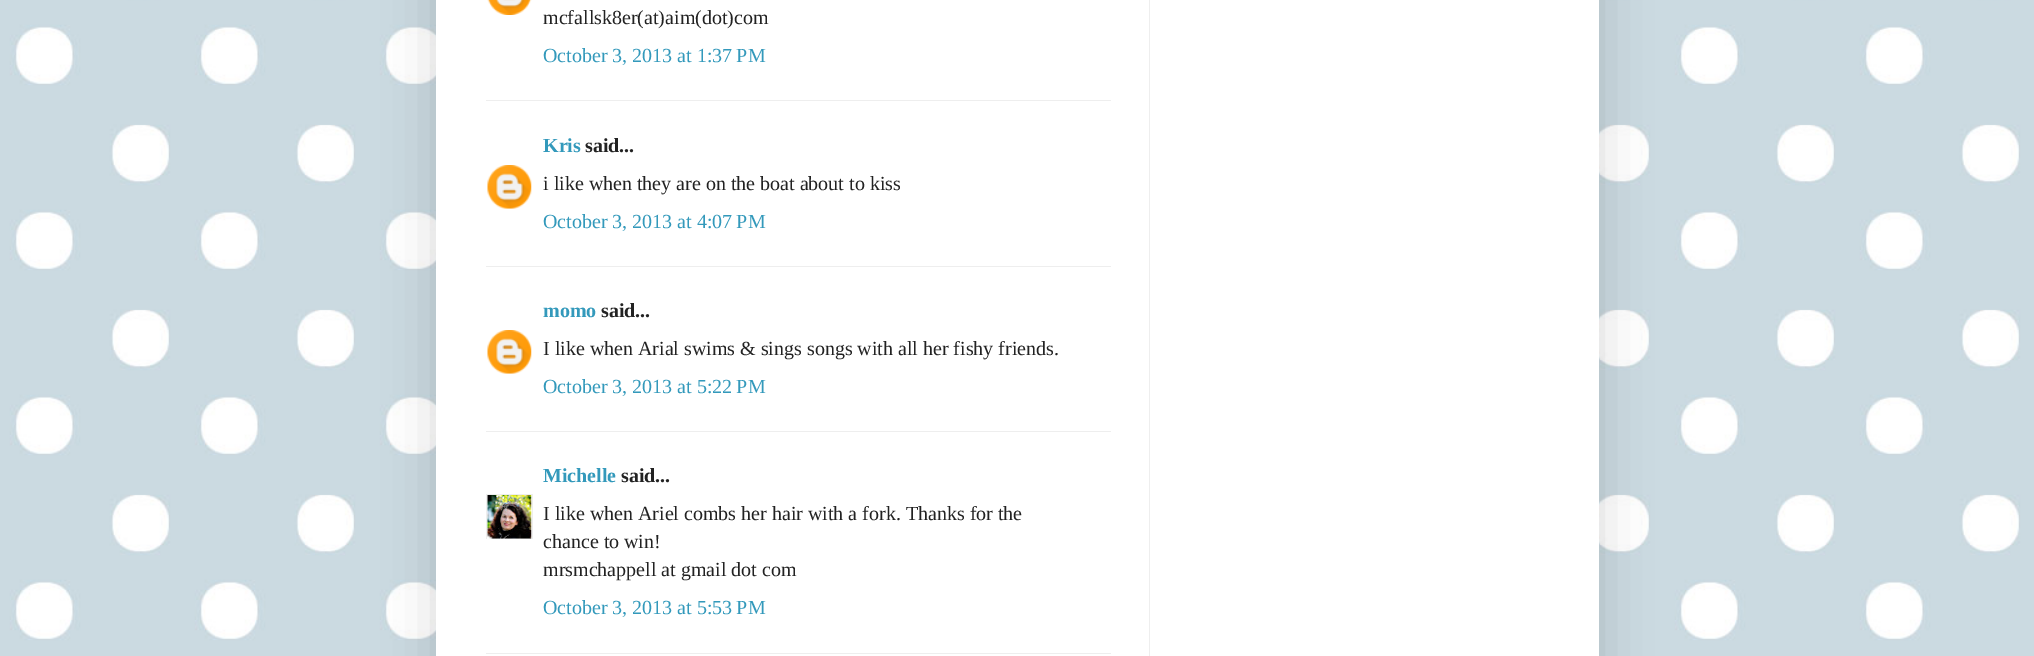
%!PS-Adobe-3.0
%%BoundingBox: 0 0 2034 656
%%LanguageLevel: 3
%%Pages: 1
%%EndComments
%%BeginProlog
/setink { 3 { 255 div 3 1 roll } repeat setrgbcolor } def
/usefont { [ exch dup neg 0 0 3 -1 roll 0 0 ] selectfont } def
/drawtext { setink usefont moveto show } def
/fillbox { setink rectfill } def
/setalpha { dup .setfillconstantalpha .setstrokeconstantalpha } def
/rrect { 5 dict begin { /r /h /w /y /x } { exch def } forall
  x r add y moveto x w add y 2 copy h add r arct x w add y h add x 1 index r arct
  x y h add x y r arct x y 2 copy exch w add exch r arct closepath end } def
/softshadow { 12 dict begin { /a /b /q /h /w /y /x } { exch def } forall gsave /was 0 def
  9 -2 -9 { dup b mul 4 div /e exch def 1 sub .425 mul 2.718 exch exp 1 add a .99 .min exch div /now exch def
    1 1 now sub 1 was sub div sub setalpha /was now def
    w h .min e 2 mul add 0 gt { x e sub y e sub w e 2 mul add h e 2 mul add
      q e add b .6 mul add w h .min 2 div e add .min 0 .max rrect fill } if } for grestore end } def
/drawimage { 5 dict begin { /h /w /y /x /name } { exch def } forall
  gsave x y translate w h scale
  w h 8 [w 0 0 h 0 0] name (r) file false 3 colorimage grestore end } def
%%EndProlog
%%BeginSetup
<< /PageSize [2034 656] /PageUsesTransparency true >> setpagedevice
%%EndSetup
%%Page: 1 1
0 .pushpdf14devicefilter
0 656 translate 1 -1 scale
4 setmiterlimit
0 0 2034 656 255 255 255 fillbox
(assets/img1.rgb) 0 0 2034 656 drawimage
0 0 0 setink
436 -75 1163 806 0 25 0.15 softshadow
436 0 1163 656 255 255 255 fillbox
(assets/img2.rgb) 487 0 45 15 drawimage
(mcfallsk8er\(at\)aim\(dot\)com) 543 24 /LiberationSerif-Regular 20 34 34 34 drawtext
(October 3, 2013 at 1:37 PM) 543 62 /LiberationSerif-Regular 20 51 153 187 drawtext
486 100 625 1 238 238 238 fillbox
(Kris) 543 152 /LiberationSerif-Bold 20 51 153 187 drawtext
(said...) 585 152 /LiberationSerif-Bold 20 34 34 34 drawtext
(assets/img3.rgb) 487 165 45 44 drawimage
(i like when they are on the boat about to kiss) 543 190 /LiberationSerif-Regular 20 34 34 34 drawtext
(October 3, 2013 at 4:07 PM) 543 228 /LiberationSerif-Regular 20 51 153 187 drawtext
486 266 625 1 238 238 238 fillbox
(momo) 543 317 /LiberationSerif-Bold 20 51 153 187 drawtext
(said...) 601 317 /LiberationSerif-Bold 20 34 34 34 drawtext
(assets/img3.rgb) 487 330 45 44 drawimage
(I like when Arial swims & sings songs with all her fishy friends.) 543 355 /LiberationSerif-Regular 20 34 34 34 drawtext
(October 3, 2013 at 5:22 PM) 543 393 /LiberationSerif-Regular 20 51 153 187 drawtext
486 431 625 1 238 238 238 fillbox
(Michelle) 543 482 /LiberationSerif-Bold 20 51 153 187 drawtext
(said...) 621 482 /LiberationSerif-Bold 20 34 34 34 drawtext
gsave
486 494 47 45 rectclip
238 238 238 setink
486.5 494.5 46 45 rectstroke
grestore
(assets/img4.rgb) 487 495 45 44 drawimage
(I like when Ariel combs her hair with a fork. Thanks for the) 543 520 /LiberationSerif-Regular 20 34 34 34 drawtext
(chance to win!) 543 548 /LiberationSerif-Regular 20 34 34 34 drawtext
(mrsmchappell at gmail dot com) 543 576 /LiberationSerif-Regular 20 34 34 34 drawtext
(October 3, 2013 at 5:53 PM) 543 614 /LiberationSerif-Regular 20 51 153 187 drawtext
486 653 625 1 238 238 238 fillbox
1149 0 1 656 238 238 238 fillbox
.poppdf14devicefilter showpage
%%EOF
